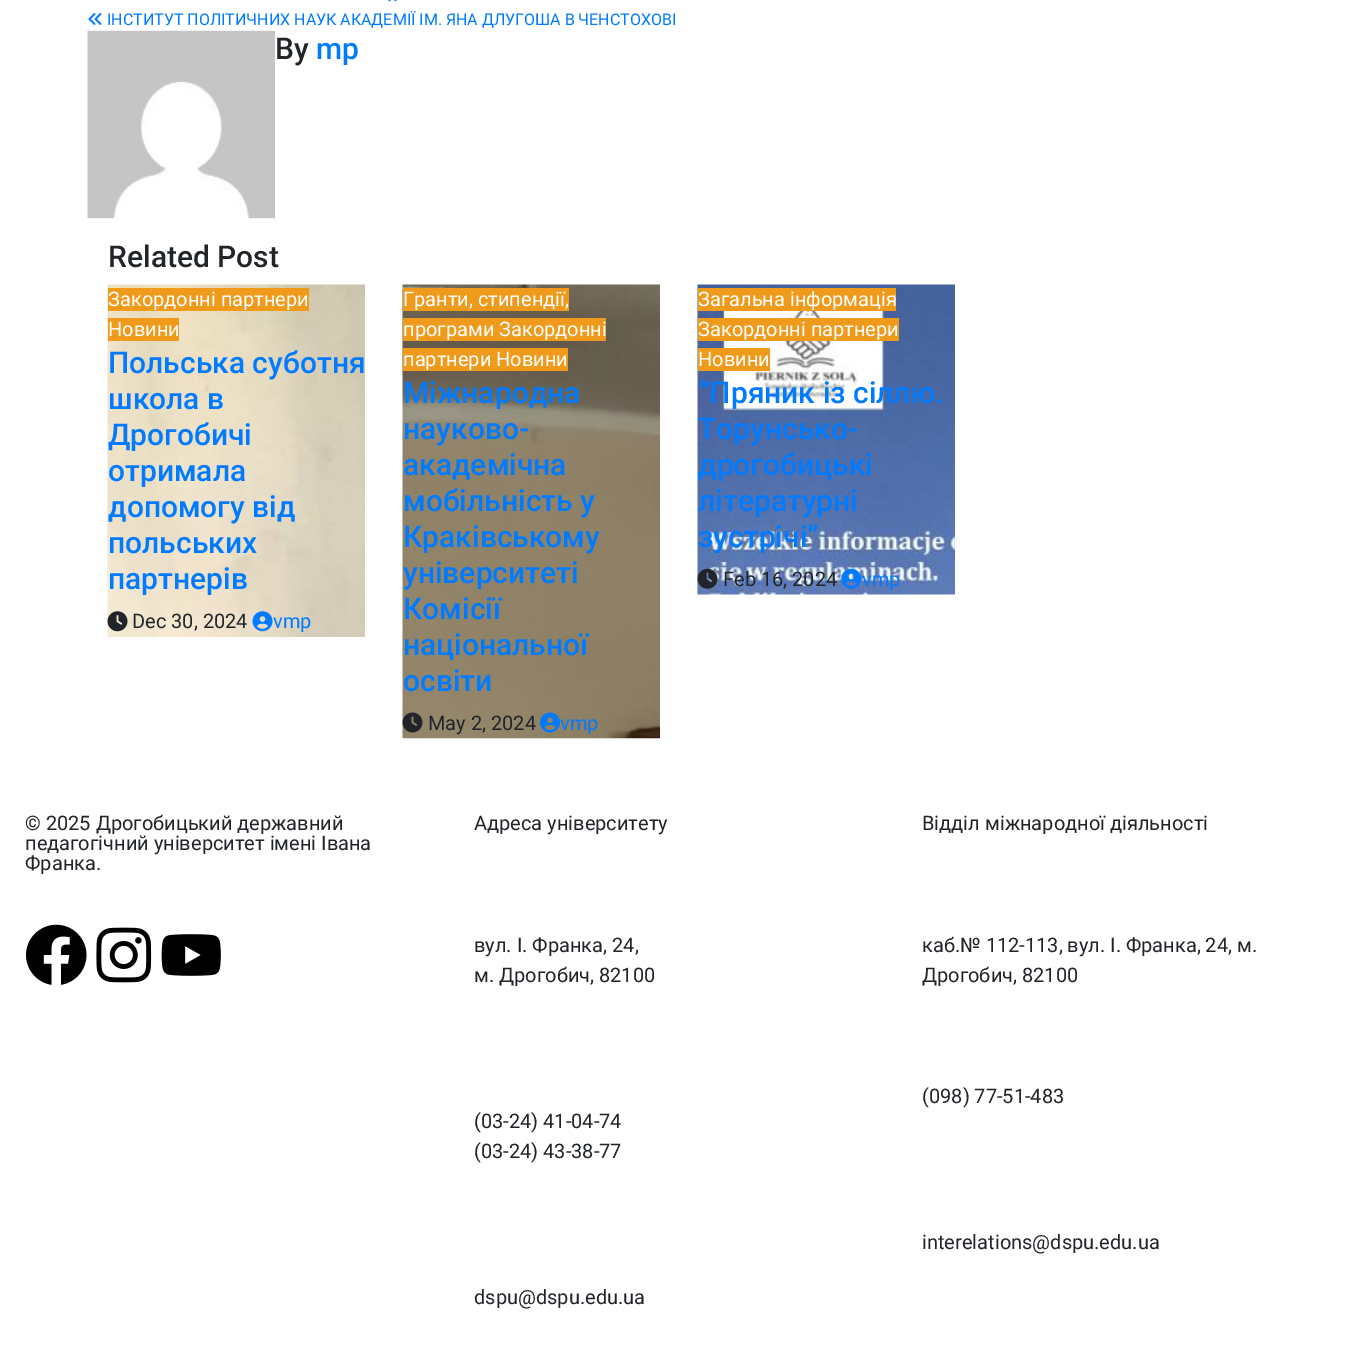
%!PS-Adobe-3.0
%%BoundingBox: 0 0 1371 1357
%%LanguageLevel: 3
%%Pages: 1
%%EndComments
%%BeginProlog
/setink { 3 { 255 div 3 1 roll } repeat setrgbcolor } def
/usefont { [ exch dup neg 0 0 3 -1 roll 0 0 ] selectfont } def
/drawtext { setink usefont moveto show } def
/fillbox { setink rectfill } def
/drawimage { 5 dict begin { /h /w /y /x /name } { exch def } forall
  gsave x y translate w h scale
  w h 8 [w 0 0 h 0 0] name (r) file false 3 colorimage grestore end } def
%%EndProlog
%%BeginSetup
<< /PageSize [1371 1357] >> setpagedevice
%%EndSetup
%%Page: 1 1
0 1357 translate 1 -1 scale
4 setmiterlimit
0 0 1371 1357 255 255 255 fillbox
(assets/img1.rgb) 388 0 9 2 drawimage
(assets/img2.rgb) 88 13 14 12 drawimage
(ІНСТИТУТ ПОЛІТИЧНИХ НАУК АКАДЕМІЇ ІМ. ЯНА ДЛУГОША В ЧЕНСТОХОВІ) 107 25 /Roboto-Regular 16 0 123 255 drawtext
(assets/img3.rgb) 87 30 188 189 drawimage
(By) 275 59 /Roboto-Medium 30 33 37 41 drawtext
(mp) 316 59 /Roboto-Medium 30 0 123 255 drawtext
(Related Post) 108 267 /Roboto-Medium 30 33 37 41 drawtext
(assets/img4.rgb) 107 284 258 353 drawimage
108 288 201 23 240 154 28 fillbox
(Закордонні партнери) 108 306 /Roboto-Regular 20 255 255 255 drawtext
108 318 71 23 240 154 28 fillbox
(Новини) 108 336 /Roboto-Regular 20 255 255 255 drawtext
(Польська суботня) 108 373 /Roboto-Medium 30 0 123 255 drawtext
(школа в) 108 409 /Roboto-Medium 30 0 123 255 drawtext
(Дрогобичі) 108 445 /Roboto-Medium 30 0 123 255 drawtext
(отримала) 108 481 /Roboto-Medium 30 0 123 255 drawtext
(допомогу від) 108 517 /Roboto-Medium 30 0 123 255 drawtext
(польських) 108 553 /Roboto-Medium 30 0 123 255 drawtext
(партнерів) 108 589 /Roboto-Medium 30 0 123 255 drawtext
(assets/img5.rgb) 107 611 21 21 drawimage
(Dec 30, 2024) 132 628 /Roboto-Regular 20 33 37 41 drawtext
(assets/img6.rgb) 252 611 21 21 drawimage
(vmp) 273 628 /Roboto-Regular 20 0 123 255 drawtext
(assets/img7.rgb) 402 284 258 455 drawimage
403 288 166 23 240 154 28 fillbox
(Гранти, стипендії,) 403 306 /Roboto-Regular 20 255 255 255 drawtext
403 318 203 23 240 154 28 fillbox
(програми Закордонні) 403 336 /Roboto-Regular 20 255 255 255 drawtext
403 348 165 23 240 154 28 fillbox
(партнери Новини) 403 366 /Roboto-Regular 20 255 255 255 drawtext
(Міжнародна) 403 403 /Roboto-Medium 30 0 123 255 drawtext
(науково-) 403 439 /Roboto-Medium 30 0 123 255 drawtext
(академічна) 403 475 /Roboto-Medium 30 0 123 255 drawtext
(мобільність у) 403 511 /Roboto-Medium 30 0 123 255 drawtext
(Краківському) 403 547 /Roboto-Medium 30 0 123 255 drawtext
(університеті) 403 583 /Roboto-Medium 30 0 123 255 drawtext
(Комісії) 403 619 /Roboto-Medium 30 0 123 255 drawtext
(національної) 403 655 /Roboto-Medium 30 0 123 255 drawtext
(освіти) 403 691 /Roboto-Medium 30 0 123 255 drawtext
(assets/img8.rgb) 402 712 21 21 drawimage
(May 2, 2024) 428 730 /Roboto-Regular 20 33 37 41 drawtext
(assets/img9.rgb) 540 712 20 21 drawimage
(vmp) 560 730 /Roboto-Regular 20 0 123 255 drawtext
(assets/img10.rgb) 697 284 258 311 drawimage
698 288 198 23 240 154 28 fillbox
(Загальна інформація) 698 306 /Roboto-Regular 20 255 255 255 drawtext
698 318 201 23 240 154 28 fillbox
(Закордонні партнери) 698 336 /Roboto-Regular 20 255 255 255 drawtext
698 348 72 23 240 154 28 fillbox
(Новини) 698 366 /Roboto-Regular 20 255 255 255 drawtext
(“Пряник із сіллю.) 698 403 /Roboto-Medium 30 0 123 255 drawtext
(Торунсько-) 698 439 /Roboto-Medium 30 0 123 255 drawtext
(дрогобицькі) 698 475 /Roboto-Medium 30 0 123 255 drawtext
(літературні) 698 511 /Roboto-Medium 30 0 123 255 drawtext
(зустрічі”) 698 547 /Roboto-Medium 30 0 123 255 drawtext
(assets/img11.rgb) 697 568 21 21 drawimage
(Feb 16, 2024) 723 586 /Roboto-Regular 20 33 37 41 drawtext
(assets/img12.rgb) 841 568 21 21 drawimage
(vmp) 862 586 /Roboto-Regular 20 0 123 255 drawtext
(© 2025 Дрогобицький державний) 25 830 /Roboto-Regular 20 33 37 41 drawtext
(педагогічний університет імені Івана) 25 850 /Roboto-Regular 20 33 37 41 drawtext
(Франка.) 25 870 /Roboto-Regular 20 33 37 41 drawtext
(assets/img13.rgb) 26 924 61 61 drawimage
(assets/img14.rgb) 96 927 56 56 drawimage
(assets/img15.rgb) 161 934 60 42 drawimage
(Адреса університету) 474 830 /Roboto-Regular 20 33 37 41 drawtext
(вул. І. Франка, 24,) 474 952 /Roboto-Regular 20 33 37 41 drawtext
(м. Дрогобич, 82100) 474 982 /Roboto-Regular 20 33 37 41 drawtext
(\(03‑24\) 41‑04‑74) 474 1128 /Roboto-Regular 20 33 37 41 drawtext
(\(03‑24\) 43‑38‑77) 474 1158 /Roboto-Regular 20 33 37 41 drawtext
(dspu@dspu.edu.ua) 474 1304 /Roboto-Regular 20 33 37 41 drawtext
(Відділ міжнародної діяльності) 922 830 /Roboto-Regular 20 33 37 41 drawtext
(каб.№ 112-113, вул. І. Франка, 24, м.) 922 952 /Roboto-Regular 20 33 37 41 drawtext
(Дрогобич, 82100) 922 982 /Roboto-Regular 20 33 37 41 drawtext
(\(098\) 77-51-483) 922 1103 /Roboto-Regular 20 33 37 41 drawtext
(interelations@dspu.edu.ua) 922 1249 /Roboto-Regular 20 33 37 41 drawtext
showpage
%%EOF
